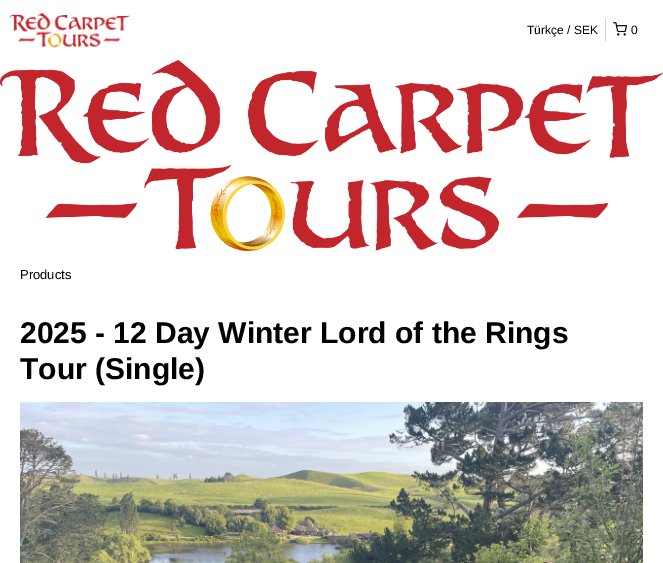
%!PS-Adobe-3.0
%%BoundingBox: 0 0 663 563
%%LanguageLevel: 3
%%Pages: 1
%%EndComments
%%BeginProlog
/setink { 3 { 255 div 3 1 roll } repeat setrgbcolor } def
/usefont { [ exch dup neg 0 0 3 -1 roll 0 0 ] selectfont } def
/drawtext { setink usefont moveto show } def
/fillbox { setink rectfill } def
/drawimage { 5 dict begin { /h /w /y /x /name } { exch def } forall
  gsave x y translate w h scale
  w h 8 [w 0 0 h 0 0] name (r) file false 3 colorimage grestore end } def
%%EndProlog
%%BeginSetup
<< /PageSize [663 563] >> setpagedevice
%%EndSetup
%%Page: 1 1
0 563 translate 1 -1 scale
4 setmiterlimit
0 0 663 563 255 255 255 fillbox
(assets/img1.rgb) 10 13 120 35 drawimage
605 19 1 22 204 209 202 fillbox
(Türkçe /) 527 34 /LiberationSans-Regular 12 0 0 0 drawtext
(SEK) 574 34 /LiberationSans-Regular 12 0 0 0 drawtext
(assets/img2.rgb) 613 22 14 14 drawimage
(0) 631 34 /LiberationSans-Regular 12 0 0 0 drawtext
(assets/img3.rgb) 0 60 663 191 drawimage
(Products) 20 279 /LiberationSans-Regular 13 0 0 0 drawtext
(2025 - 12 Day Winter Lord of the Rings) 20 343 /LiberationSans-Bold 30 0 0 0 drawtext
(Tour \(Single\)) 20 379 /LiberationSans-Bold 30 0 0 0 drawtext
(assets/img4.rgb) 20 402 623 161 drawimage
showpage
%%EOF
